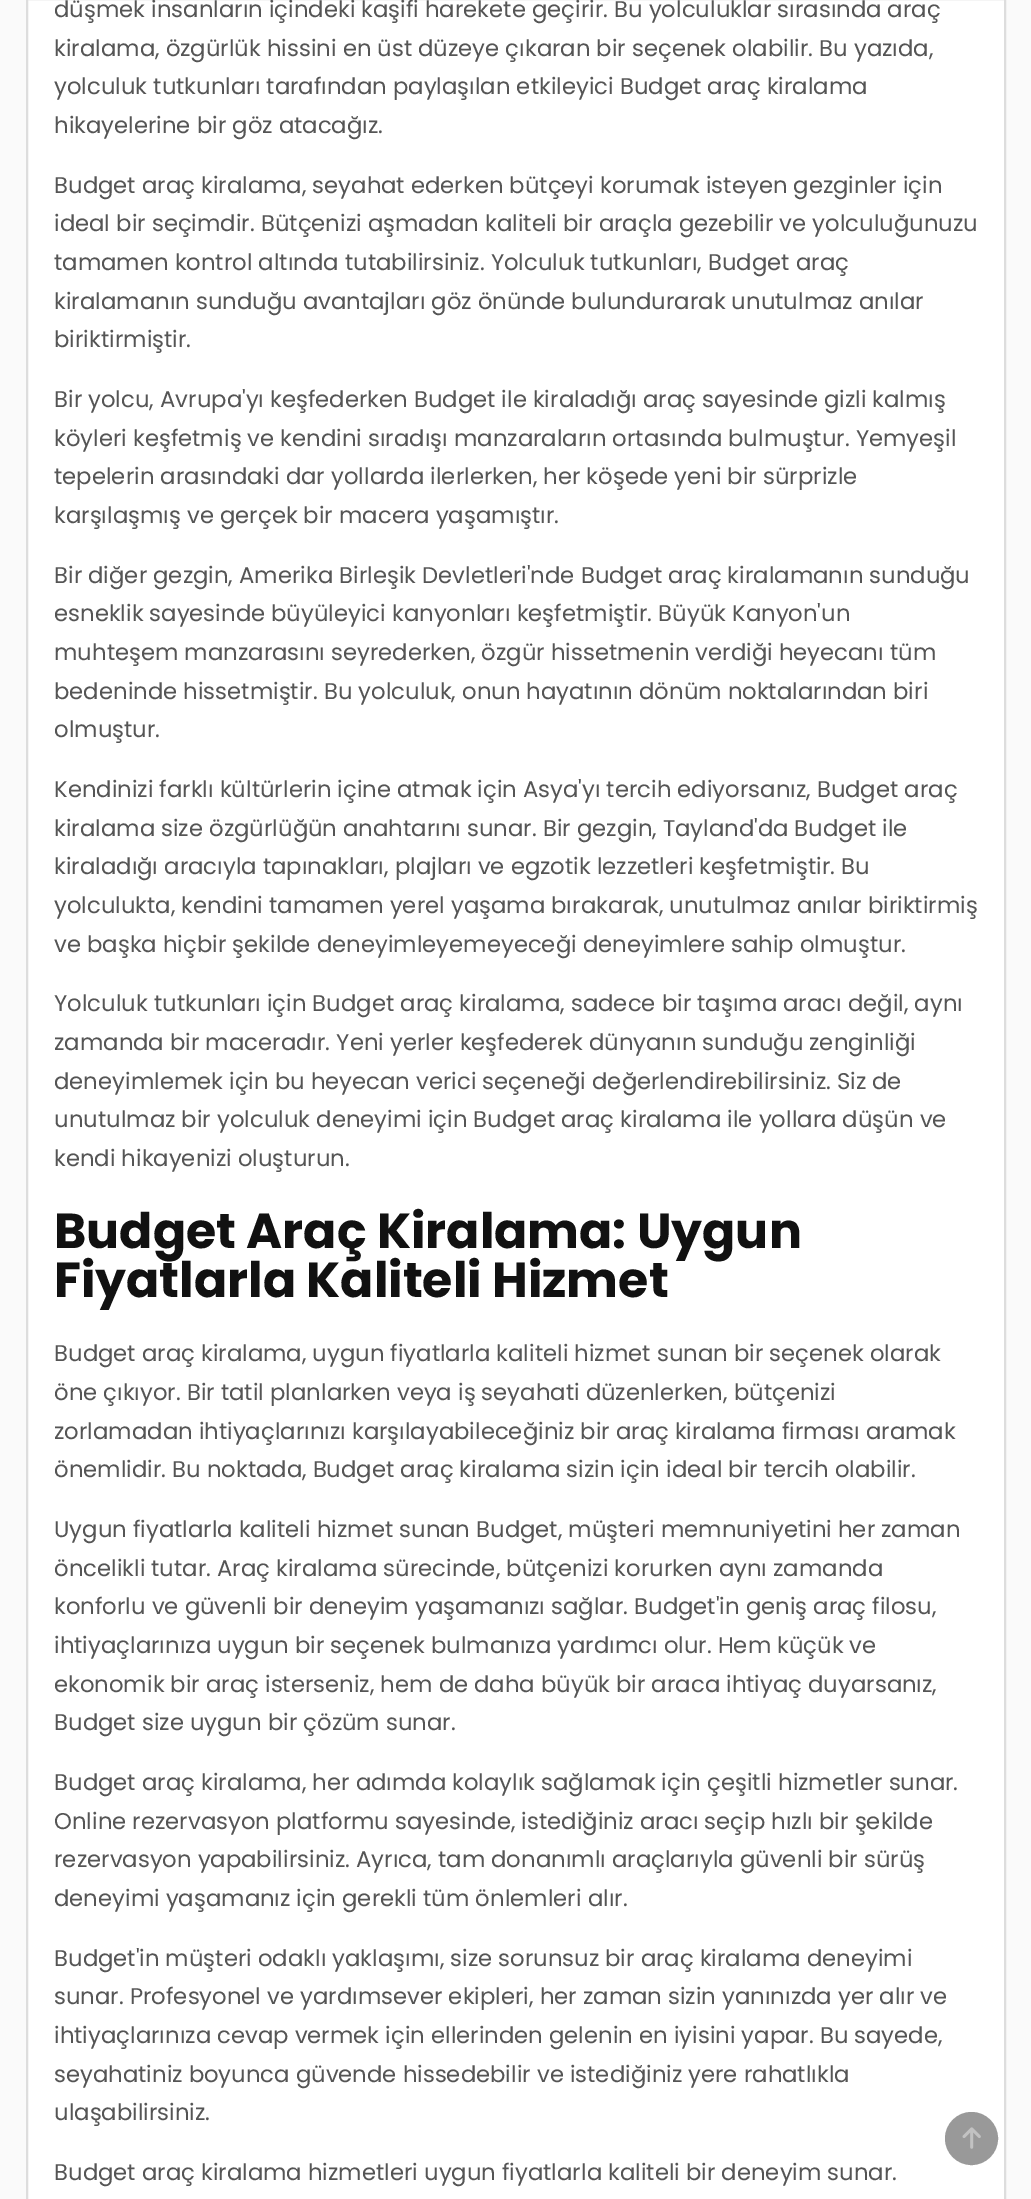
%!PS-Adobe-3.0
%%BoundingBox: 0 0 1031 2199
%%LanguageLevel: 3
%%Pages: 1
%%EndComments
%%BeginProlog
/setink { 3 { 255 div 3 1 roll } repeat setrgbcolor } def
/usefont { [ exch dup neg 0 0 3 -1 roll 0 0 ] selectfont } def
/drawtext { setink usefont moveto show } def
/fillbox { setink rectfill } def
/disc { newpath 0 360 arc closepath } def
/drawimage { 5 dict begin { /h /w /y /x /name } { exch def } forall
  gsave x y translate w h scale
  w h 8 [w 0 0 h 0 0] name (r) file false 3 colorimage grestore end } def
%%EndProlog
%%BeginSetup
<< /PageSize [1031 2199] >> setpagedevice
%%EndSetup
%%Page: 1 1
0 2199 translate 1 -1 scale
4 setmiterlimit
0 0 1031 2199 250 250 250 fillbox
255 255 255 setink
27 -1 moveto 1005 -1 lineto 1005 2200 lineto 27 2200 lineto closepath gsave fill grestore
221 221 221 setink
2 setlinewidth
stroke
(düşmek insanların içindeki kaşifi harekete geçirir. Bu yolculuklar sırasında araç) 54 17 /Poppins-Regular 22.75 85 85 85 drawtext
(kiralama, özgürlük hissini en üst düzeye çıkaran bir seçenek olabilir. Bu yazıda,) 54 56 /Poppins-Regular 22.75 85 85 85 drawtext
(yolculuk tutkunları tarafından paylaşılan etkileyici Budget araç kiralama) 54 94 /Poppins-Regular 22.75 85 85 85 drawtext
(hikayelerine bir göz atacağız.) 54 133 /Poppins-Regular 22.75 85 85 85 drawtext
(Budget araç kiralama, seyahat ederken bütçeyi korumak isteyen gezginler için) 54 193 /Poppins-Regular 22.75 85 85 85 drawtext
(ideal bir seçimdir. Bütçenizi aşmadan kaliteli bir araçla gezebilir ve yolculuğunuzu) 54 231 /Poppins-Regular 22.75 85 85 85 drawtext
(tamamen kontrol altında tutabilirsiniz. Yolculuk tutkunları, Budget araç) 54 270 /Poppins-Regular 22.75 85 85 85 drawtext
(kiralamanın sunduğu avantajları göz önünde bulundurarak unutulmaz anılar) 54 309 /Poppins-Regular 22.75 85 85 85 drawtext
(biriktirmiştir.) 54 347 /Poppins-Regular 22.75 85 85 85 drawtext
(Bir yolcu, Avrupa'yı keşfederken Budget ile kiraladığı araç sayesinde gizli kalmış) 54 407 /Poppins-Regular 22.75 85 85 85 drawtext
(köyleri keşfetmiş ve kendini sıradışı manzaraların ortasında bulmuştur. Yemyeşil) 54 446 /Poppins-Regular 22.75 85 85 85 drawtext
(tepelerin arasındaki dar yollarda ilerlerken, her köşede yeni bir sürprizle) 54 484 /Poppins-Regular 22.75 85 85 85 drawtext
(karşılaşmış ve gerçek bir macera yaşamıştır.) 54 523 /Poppins-Regular 22.75 85 85 85 drawtext
(Bir diğer gezgin, Amerika Birleşik Devletleri'nde Budget araç kiralamanın sunduğu) 54 583 /Poppins-Regular 22.75 85 85 85 drawtext
(esneklik sayesinde büyüleyici kanyonları keşfetmiştir. Büyük Kanyon'un) 54 621 /Poppins-Regular 22.75 85 85 85 drawtext
(muhteşem manzarasını seyrederken, özgür hissetmenin verdiği heyecanı tüm) 54 660 /Poppins-Regular 22.75 85 85 85 drawtext
(bedeninde hissetmiştir. Bu yolculuk, onun hayatının dönüm noktalarından biri) 54 699 /Poppins-Regular 22.75 85 85 85 drawtext
(olmuştur.) 54 737 /Poppins-Regular 22.75 85 85 85 drawtext
(Kendinizi farklı kültürlerin içine atmak için Asya'yı tercih ediyorsanız, Budget araç) 54 797 /Poppins-Regular 22.75 85 85 85 drawtext
(kiralama size özgürlüğün anahtarını sunar. Bir gezgin, Tayland'da Budget ile) 54 836 /Poppins-Regular 22.75 85 85 85 drawtext
(kiraladığı aracıyla tapınakları, plajları ve egzotik lezzetleri keşfetmiştir. Bu) 54 874 /Poppins-Regular 22.75 85 85 85 drawtext
(yolculukta, kendini tamamen yerel yaşama bırakarak, unutulmaz anılar biriktirmiş) 54 913 /Poppins-Regular 22.75 85 85 85 drawtext
(ve başka hiçbir şekilde deneyimleyemeyeceği deneyimlere sahip olmuştur.) 54 952 /Poppins-Regular 22.75 85 85 85 drawtext
(Yolculuk tutkunları için Budget araç kiralama, sadece bir taşıma aracı değil, aynı) 54 1011 /Poppins-Regular 22.75 85 85 85 drawtext
(zamanda bir maceradır. Yeni yerler keşfederek dünyanın sunduğu zenginliği) 54 1050 /Poppins-Regular 22.75 85 85 85 drawtext
(deneyimlemek için bu heyecan verici seçeneği değerlendirebilirsiniz. Siz de) 54 1089 /Poppins-Regular 22.75 85 85 85 drawtext
(unutulmaz bir yolculuk deneyimi için Budget araç kiralama ile yollara düşün ve) 54 1127 /Poppins-Regular 22.75 85 85 85 drawtext
(kendi hikayenizi oluşturun.) 54 1166 /Poppins-Regular 22.75 85 85 85 drawtext
(Budget Araç Kiralama: Uygun) 54 1248 /Poppins-Bold 49 17 17 17 drawtext
(Fiyatlarla Kaliteli Hizmet) 54 1297 /Poppins-Bold 49 17 17 17 drawtext
(Budget araç kiralama, uygun fiyatlarla kaliteli hizmet sunan bir seçenek olarak) 54 1361 /Poppins-Regular 22.75 85 85 85 drawtext
(öne çıkıyor. Bir tatil planlarken veya iş seyahati düzenlerken, bütçenizi) 54 1400 /Poppins-Regular 22.75 85 85 85 drawtext
(zorlamadan ihtiyaçlarınızı karşılayabileceğiniz bir araç kiralama firması aramak) 54 1439 /Poppins-Regular 22.75 85 85 85 drawtext
(önemlidir. Bu noktada, Budget araç kiralama sizin için ideal bir tercih olabilir.) 54 1477 /Poppins-Regular 22.75 85 85 85 drawtext
(Uygun fiyatlarla kaliteli hizmet sunan Budget, müşteri memnuniyetini her zaman) 54 1537 /Poppins-Regular 22.75 85 85 85 drawtext
(öncelikli tutar. Araç kiralama sürecinde, bütçenizi korurken aynı zamanda) 54 1576 /Poppins-Regular 22.75 85 85 85 drawtext
(konforlu ve güvenli bir deneyim yaşamanızı sağlar. Budget'in geniş araç filosu,) 54 1614 /Poppins-Regular 22.75 85 85 85 drawtext
(ihtiyaçlarınıza uygun bir seçenek bulmanıza yardımcı olur. Hem küçük ve) 54 1653 /Poppins-Regular 22.75 85 85 85 drawtext
(ekonomik bir araç isterseniz, hem de daha büyük bir araca ihtiyaç duyarsanız,) 54 1692 /Poppins-Regular 22.75 85 85 85 drawtext
(Budget size uygun bir çözüm sunar.) 54 1730 /Poppins-Regular 22.75 85 85 85 drawtext
(Budget araç kiralama, her adımda kolaylık sağlamak için çeşitli hizmetler sunar.) 54 1790 /Poppins-Regular 22.75 85 85 85 drawtext
(Online rezervasyon platformu sayesinde, istediğiniz aracı seçip hızlı bir şekilde) 54 1829 /Poppins-Regular 22.75 85 85 85 drawtext
(rezervasyon yapabilirsiniz. Ayrıca, tam donanımlı araçlarıyla güvenli bir sürüş) 54 1867 /Poppins-Regular 22.75 85 85 85 drawtext
(deneyimi yaşamanız için gerekli tüm önlemleri alır.) 54 1906 /Poppins-Regular 22.75 85 85 85 drawtext
(Budget'in müşteri odaklı yaklaşımı, size sorunsuz bir araç kiralama deneyimi) 54 1966 /Poppins-Regular 22.75 85 85 85 drawtext
(sunar. Profesyonel ve yardımsever ekipleri, her zaman sizin yanınızda yer alır ve) 54 2004 /Poppins-Regular 22.75 85 85 85 drawtext
(ihtiyaçlarınıza cevap vermek için ellerinden gelenin en iyisini yapar. Bu sayede,) 54 2043 /Poppins-Regular 22.75 85 85 85 drawtext
(seyahatiniz boyunca güvende hissedebilir ve istediğiniz yere rahatlıkla) 54 2082 /Poppins-Regular 22.75 85 85 85 drawtext
(ulaşabilirsiniz.) 54 2120 /Poppins-Regular 22.75 85 85 85 drawtext
(Budget araç kiralama hizmetleri uygun fiyatlarla kaliteli bir deneyim sunar.) 54 2180 /Poppins-Regular 22.75 85 85 85 drawtext
153 153 153 setink
971.5 2138.5 25.5 disc gsave fill grestore
stroke
(assets/img1.rgb) 962 2127 19 22 drawimage
showpage
%%EOF
